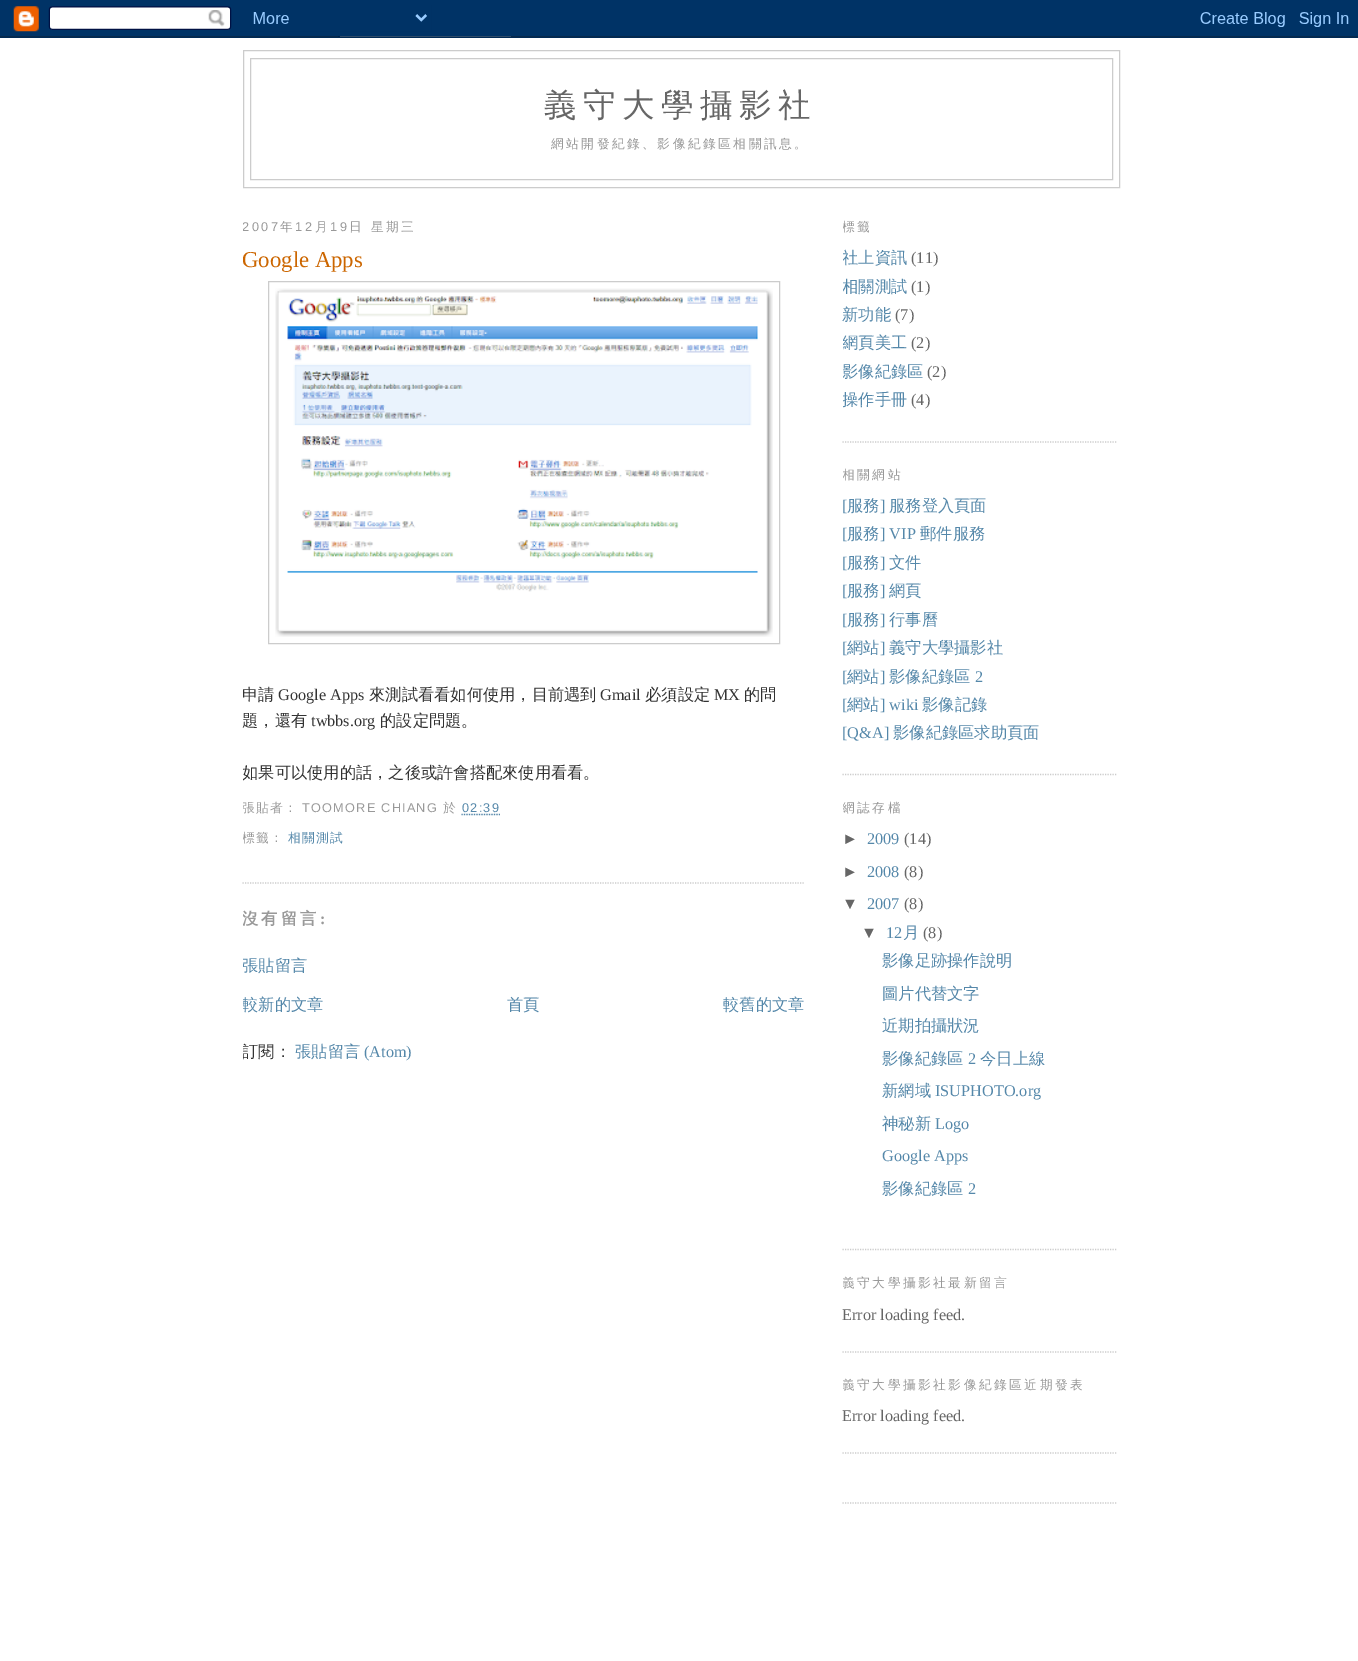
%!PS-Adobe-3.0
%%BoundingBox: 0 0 1358 1661
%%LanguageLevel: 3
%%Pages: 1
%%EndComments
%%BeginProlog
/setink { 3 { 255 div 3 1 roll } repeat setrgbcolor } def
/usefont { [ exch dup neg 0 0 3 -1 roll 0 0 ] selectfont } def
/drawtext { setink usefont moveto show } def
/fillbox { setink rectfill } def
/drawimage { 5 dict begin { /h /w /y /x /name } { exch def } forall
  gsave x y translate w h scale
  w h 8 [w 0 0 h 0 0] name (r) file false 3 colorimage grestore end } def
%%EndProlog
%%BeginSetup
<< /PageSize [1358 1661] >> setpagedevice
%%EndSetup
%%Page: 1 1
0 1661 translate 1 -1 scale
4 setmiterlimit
0 0 1358 1661 255 255 255 fillbox
(assets/img1.rgb) 0 0 1358 38 drawimage
204 204 204 setink
243.5 50.5 876 137 rectstroke
250.5 58.5 862 121 rectstroke
/WenQuanYiZenHei-Medium 32.5 usefont
102 102 102 setink
544 116 moveto 6.5 0 (義守大學攝影社) ashow
/WenQuanYiZenHei-Medium 12.7 usefont
153 153 153 setink
551 148 moveto 2.5 0 (網站開發紀錄、影像紀錄區相關訊息。) ashow
gsave
243 200 562 921 rectclip
/LiberationSans-Regular 12.7 usefont
242 231 moveto 2.5 0 (2007) ashow
grestore
280 231 moveto 2.5 0 (年) ashow
/LiberationSans-Regular 12.7 usefont
295 231 moveto 2.5 0 (12) ashow
/WenQuanYiZenHei-Medium 12.7 usefont
315 231 moveto 2.5 0 (月) ashow
/LiberationSans-Regular 12.7 usefont
330 231 moveto 2.5 0 (19) ashow
/WenQuanYiZenHei-Medium 12.7 usefont
349 231 moveto 2.5 0 (日 星期三) ashow
204 204 204 setink
1.2 setlinewidth
[1.25 1.25] 0 setdash
242.5 883 moveto 805 883 lineto stroke
gsave
243 200 562 921 rectclip
(Google Apps) 242 267 /LiberationSerif-Regular 22.75 204 102 0 drawtext
grestore
1 setlinewidth
[] 0 setdash
268.5 281.5 511 362 rectstroke
(assets/img2.rgb) 275 288 498 349 drawimage
gsave
243 200 562 921 rectclip
(申請) 242 700 /WenQuanYiZenHei-Medium 16.25 51 51 51 drawtext
grestore
(Google Apps) 278 700 /LiberationSerif-Regular 16.25 51 51 51 drawtext
(來測試看看如何使用，目前遇到) 369 700 /WenQuanYiZenHei-Medium 16.25 51 51 51 drawtext
(Gmail) 600 700 /LiberationSerif-Regular 16.25 51 51 51 drawtext
(必須設定) 645 700 /WenQuanYiZenHei-Medium 16.25 51 51 51 drawtext
(MX) 714 700 /LiberationSerif-Regular 16.25 51 51 51 drawtext
(的問) 744 700 /WenQuanYiZenHei-Medium 16.25 51 51 51 drawtext
(題，還有) 242 726 /WenQuanYiZenHei-Medium 16.25 51 51 51 drawtext
(twbbs.org) 311 726 /LiberationSerif-Regular 16.25 51 51 51 drawtext
(的設定問題。) 380 726 /WenQuanYiZenHei-Medium 16.25 51 51 51 drawtext
gsave
243 200 562 921 rectclip
(如果可以使用的話，之後或許會搭配來使用看看。) 242 778 /WenQuanYiZenHei-Medium 16.25 51 51 51 drawtext
/WenQuanYiZenHei-Medium 12.7 usefont
153 153 153 setink
242 812 moveto 1.25 0 (張貼者：) ashow
grestore
/LiberationSans-Regular 12.7 usefont
153 153 153 setink
302 812 moveto 1.25 0 (TOOMORE CHIANG) ashow
/WenQuanYiZenHei-Medium 12.7 usefont
443 812 moveto 1.25 0 (於) ashow
/LiberationSans-Regular 12.7 usefont
85 136 170 setink
462 812 moveto 1.25 0 (02:39) ashow
1.2 setlinewidth
[1.25 1.25] 0 setdash
461.5 814.5 moveto 500 814.5 lineto stroke
gsave
243 200 562 921 rectclip
/WenQuanYiZenHei-Medium 12.7 usefont
153 153 153 setink
242 842 moveto 1.25 0 (標籤：) ashow
grestore
/WenQuanYiZenHei-Medium 12.7 usefont
288 842 moveto 1.25 0 (相關測試) ashow
gsave
243 200 562 921 rectclip
/WenQuanYiZenHei-Bold 16.25 usefont
153 153 153 setink
242 924 moveto 3 0 (沒有留言) ashow
grestore
/LiberationSerif-Bold 16.25 usefont
153 153 153 setink
320 924 moveto 3 0 (:) ashow
gsave
243 200 562 921 rectclip
(張貼留言) 242 971 /WenQuanYiZenHei-Medium 16.25 85 136 170 drawtext
grestore
gsave
243 994 562 22 rectclip
(較新的文章) 242 1010 /WenQuanYiZenHei-Medium 16.25 85 136 170 drawtext
grestore
(首頁) 507 1010 /WenQuanYiZenHei-Medium 16.25 85 136 170 drawtext
(較舊的文章) 723 1010 /WenQuanYiZenHei-Medium 16.25 85 136 170 drawtext
gsave
243 200 562 921 rectclip
(訂閱：) 242 1057 /WenQuanYiZenHei-Medium 16.25 51 51 51 drawtext
grestore
(張貼留言) 295 1057 /WenQuanYiZenHei-Medium 16.25 85 136 170 drawtext
(\(Atom\)) 364 1057 /LiberationSerif-Regular 16.25 85 136 170 drawtext
204 204 204 setink
842.5 442 moveto 1117.5 442 lineto stroke
gsave
843 200 275 1328 rectclip
/WenQuanYiZenHei-Medium 12.7 usefont
153 153 153 setink
842 231 moveto 2.5 0 (標籤) ashow
(社上資訊) 842 263 /WenQuanYiZenHei-Medium 16.25 85 136 170 drawtext
grestore
(\(11\)) 911 263 /LiberationSerif-Regular 16.25 102 102 102 drawtext
gsave
843 200 275 1328 rectclip
(相關測試) 842 292 /WenQuanYiZenHei-Medium 16.25 85 136 170 drawtext
grestore
(\(1\)) 911 292 /LiberationSerif-Regular 16.25 102 102 102 drawtext
(新功能) 842 320 /WenQuanYiZenHei-Medium 16.25 85 136 170 drawtext
(\(7\)) 895 320 /LiberationSerif-Regular 16.25 102 102 102 drawtext
gsave
843 200 275 1328 rectclip
(網頁美工) 842 348 /WenQuanYiZenHei-Medium 16.25 85 136 170 drawtext
grestore
(\(2\)) 911 348 /LiberationSerif-Regular 16.25 102 102 102 drawtext
gsave
843 200 275 1328 rectclip
(影像紀錄區) 842 377 /WenQuanYiZenHei-Medium 16.25 85 136 170 drawtext
grestore
(\(2\)) 927 377 /LiberationSerif-Regular 16.25 102 102 102 drawtext
gsave
843 200 275 1328 rectclip
(操作手冊) 842 405 /WenQuanYiZenHei-Medium 16.25 85 136 170 drawtext
grestore
(\(4\)) 911 405 /LiberationSerif-Regular 16.25 102 102 102 drawtext
204 204 204 setink
842.5 774.5 moveto 1117.5 774.5 lineto stroke
gsave
843 200 275 1328 rectclip
/WenQuanYiZenHei-Medium 12.7 usefont
153 153 153 setink
842 479 moveto 2.5 0 (相關網站) ashow
grestore
([) 842 511 /LiberationSerif-Regular 16.25 85 136 170 drawtext
(服務) 847 511 /WenQuanYiZenHei-Medium 16.25 85 136 170 drawtext
(]) 880 511 /LiberationSerif-Regular 16.25 85 136 170 drawtext
(服務登入頁面) 889 511 /WenQuanYiZenHei-Medium 16.25 85 136 170 drawtext
([) 842 539 /LiberationSerif-Regular 16.25 85 136 170 drawtext
(服務) 847 539 /WenQuanYiZenHei-Medium 16.25 85 136 170 drawtext
(] VIP) 880 539 /LiberationSerif-Regular 16.25 85 136 170 drawtext
(郵件服務) 920 539 /WenQuanYiZenHei-Medium 16.25 85 136 170 drawtext
([) 842 568 /LiberationSerif-Regular 16.25 85 136 170 drawtext
(服務) 847 568 /WenQuanYiZenHei-Medium 16.25 85 136 170 drawtext
(]) 880 568 /LiberationSerif-Regular 16.25 85 136 170 drawtext
(文件) 889 568 /WenQuanYiZenHei-Medium 16.25 85 136 170 drawtext
([) 842 596 /LiberationSerif-Regular 16.25 85 136 170 drawtext
(服務) 847 596 /WenQuanYiZenHei-Medium 16.25 85 136 170 drawtext
(]) 880 596 /LiberationSerif-Regular 16.25 85 136 170 drawtext
(網頁) 889 596 /WenQuanYiZenHei-Medium 16.25 85 136 170 drawtext
([) 842 625 /LiberationSerif-Regular 16.25 85 136 170 drawtext
(服務) 847 625 /WenQuanYiZenHei-Medium 16.25 85 136 170 drawtext
(]) 880 625 /LiberationSerif-Regular 16.25 85 136 170 drawtext
(行事曆) 889 625 /WenQuanYiZenHei-Medium 16.25 85 136 170 drawtext
([) 842 653 /LiberationSerif-Regular 16.25 85 136 170 drawtext
(網站) 847 653 /WenQuanYiZenHei-Medium 16.25 85 136 170 drawtext
(]) 880 653 /LiberationSerif-Regular 16.25 85 136 170 drawtext
(義守大學攝影社) 889 653 /WenQuanYiZenHei-Medium 16.25 85 136 170 drawtext
([) 842 682 /LiberationSerif-Regular 16.25 85 136 170 drawtext
(網站) 847 682 /WenQuanYiZenHei-Medium 16.25 85 136 170 drawtext
(]) 880 682 /LiberationSerif-Regular 16.25 85 136 170 drawtext
(影像紀錄區) 889 682 /WenQuanYiZenHei-Medium 16.25 85 136 170 drawtext
(2) 975 682 /LiberationSerif-Regular 16.25 85 136 170 drawtext
([) 842 710 /LiberationSerif-Regular 16.25 85 136 170 drawtext
(網站) 847 710 /WenQuanYiZenHei-Medium 16.25 85 136 170 drawtext
(] wiki) 880 710 /LiberationSerif-Regular 16.25 85 136 170 drawtext
(影像記錄) 922 710 /WenQuanYiZenHei-Medium 16.25 85 136 170 drawtext
([Q&A]) 842 738 /LiberationSerif-Regular 16.25 85 136 170 drawtext
(影像紀錄區求助頁面) 893 738 /WenQuanYiZenHei-Medium 16.25 85 136 170 drawtext
204 204 204 setink
842.5 1249.5 moveto 1117.5 1249.5 lineto stroke
gsave
843 200 275 1328 rectclip
/WenQuanYiZenHei-Medium 12.7 usefont
153 153 153 setink
842 812 moveto 2.5 0 (網誌存檔) ashow
grestore
(►) 842 844 /LiberationSans-Regular 16.25 102 102 102 drawtext
(2009) 867 844 /LiberationSerif-Regular 16.25 85 136 170 drawtext
(\(14\)) 904 844 /LiberationSerif-Regular 16.25 102 102 102 drawtext
(►) 842 877 /LiberationSans-Regular 16.25 102 102 102 drawtext
(2008) 867 877 /LiberationSerif-Regular 16.25 85 136 170 drawtext
(\(8\)) 904 877 /LiberationSerif-Regular 16.25 102 102 102 drawtext
(▼) 842 909 /LiberationSans-Regular 16.25 102 102 102 drawtext
(2007) 867 909 /LiberationSerif-Regular 16.25 85 136 170 drawtext
(\(8\)) 904 909 /LiberationSerif-Regular 16.25 102 102 102 drawtext
(▼) 861 938 /LiberationSans-Regular 16.25 102 102 102 drawtext
(12) 886 938 /LiberationSerif-Regular 16.25 85 136 170 drawtext
(月) 903 938 /WenQuanYiZenHei-Medium 16.25 85 136 170 drawtext
(\(8\)) 923 938 /LiberationSerif-Regular 16.25 102 102 102 drawtext
(影像足跡操作說明) 882 966 /WenQuanYiZenHei-Medium 16.25 85 136 170 drawtext
(圖片代替文字) 882 999 /WenQuanYiZenHei-Medium 16.25 85 136 170 drawtext
(近期拍攝狀況) 882 1031 /WenQuanYiZenHei-Medium 16.25 85 136 170 drawtext
(影像紀錄區) 882 1064 /WenQuanYiZenHei-Medium 16.25 85 136 170 drawtext
(2) 968 1064 /LiberationSerif-Regular 16.25 85 136 170 drawtext
(今日上線) 980 1064 /WenQuanYiZenHei-Medium 16.25 85 136 170 drawtext
(新網域) 882 1096 /WenQuanYiZenHei-Medium 16.25 85 136 170 drawtext
(ISUPHOTO.org) 935 1096 /LiberationSerif-Regular 16.25 85 136 170 drawtext
(神秘新) 882 1129 /WenQuanYiZenHei-Medium 16.25 85 136 170 drawtext
(Logo) 935 1129 /LiberationSerif-Regular 16.25 85 136 170 drawtext
(Google Apps) 882 1161 /LiberationSerif-Regular 16.25 85 136 170 drawtext
(影像紀錄區) 882 1194 /WenQuanYiZenHei-Medium 16.25 85 136 170 drawtext
(2) 968 1194 /LiberationSerif-Regular 16.25 85 136 170 drawtext
204 204 204 setink
842.5 1352 moveto 1117.5 1352 lineto stroke
gsave
843 200 275 1328 rectclip
/WenQuanYiZenHei-Medium 12.7 usefont
153 153 153 setink
842 1287 moveto 2.5 0 (義守大學攝影社最新留言) ashow
grestore
(Error loading feed.) 842 1320 /LiberationSerif-Regular 16.25 102 102 102 drawtext
204 204 204 setink
842.5 1453 moveto 1117.5 1453 lineto stroke
gsave
843 200 275 1328 rectclip
/WenQuanYiZenHei-Medium 12.7 usefont
153 153 153 setink
842 1389 moveto 2.5 0 (義守大學攝影社影像紀錄區近期發表) ashow
grestore
(Error loading feed.) 842 1421 /LiberationSerif-Regular 16.25 102 102 102 drawtext
204 204 204 setink
842.5 1503 moveto 1117.5 1503 lineto stroke
showpage
%%EOF
